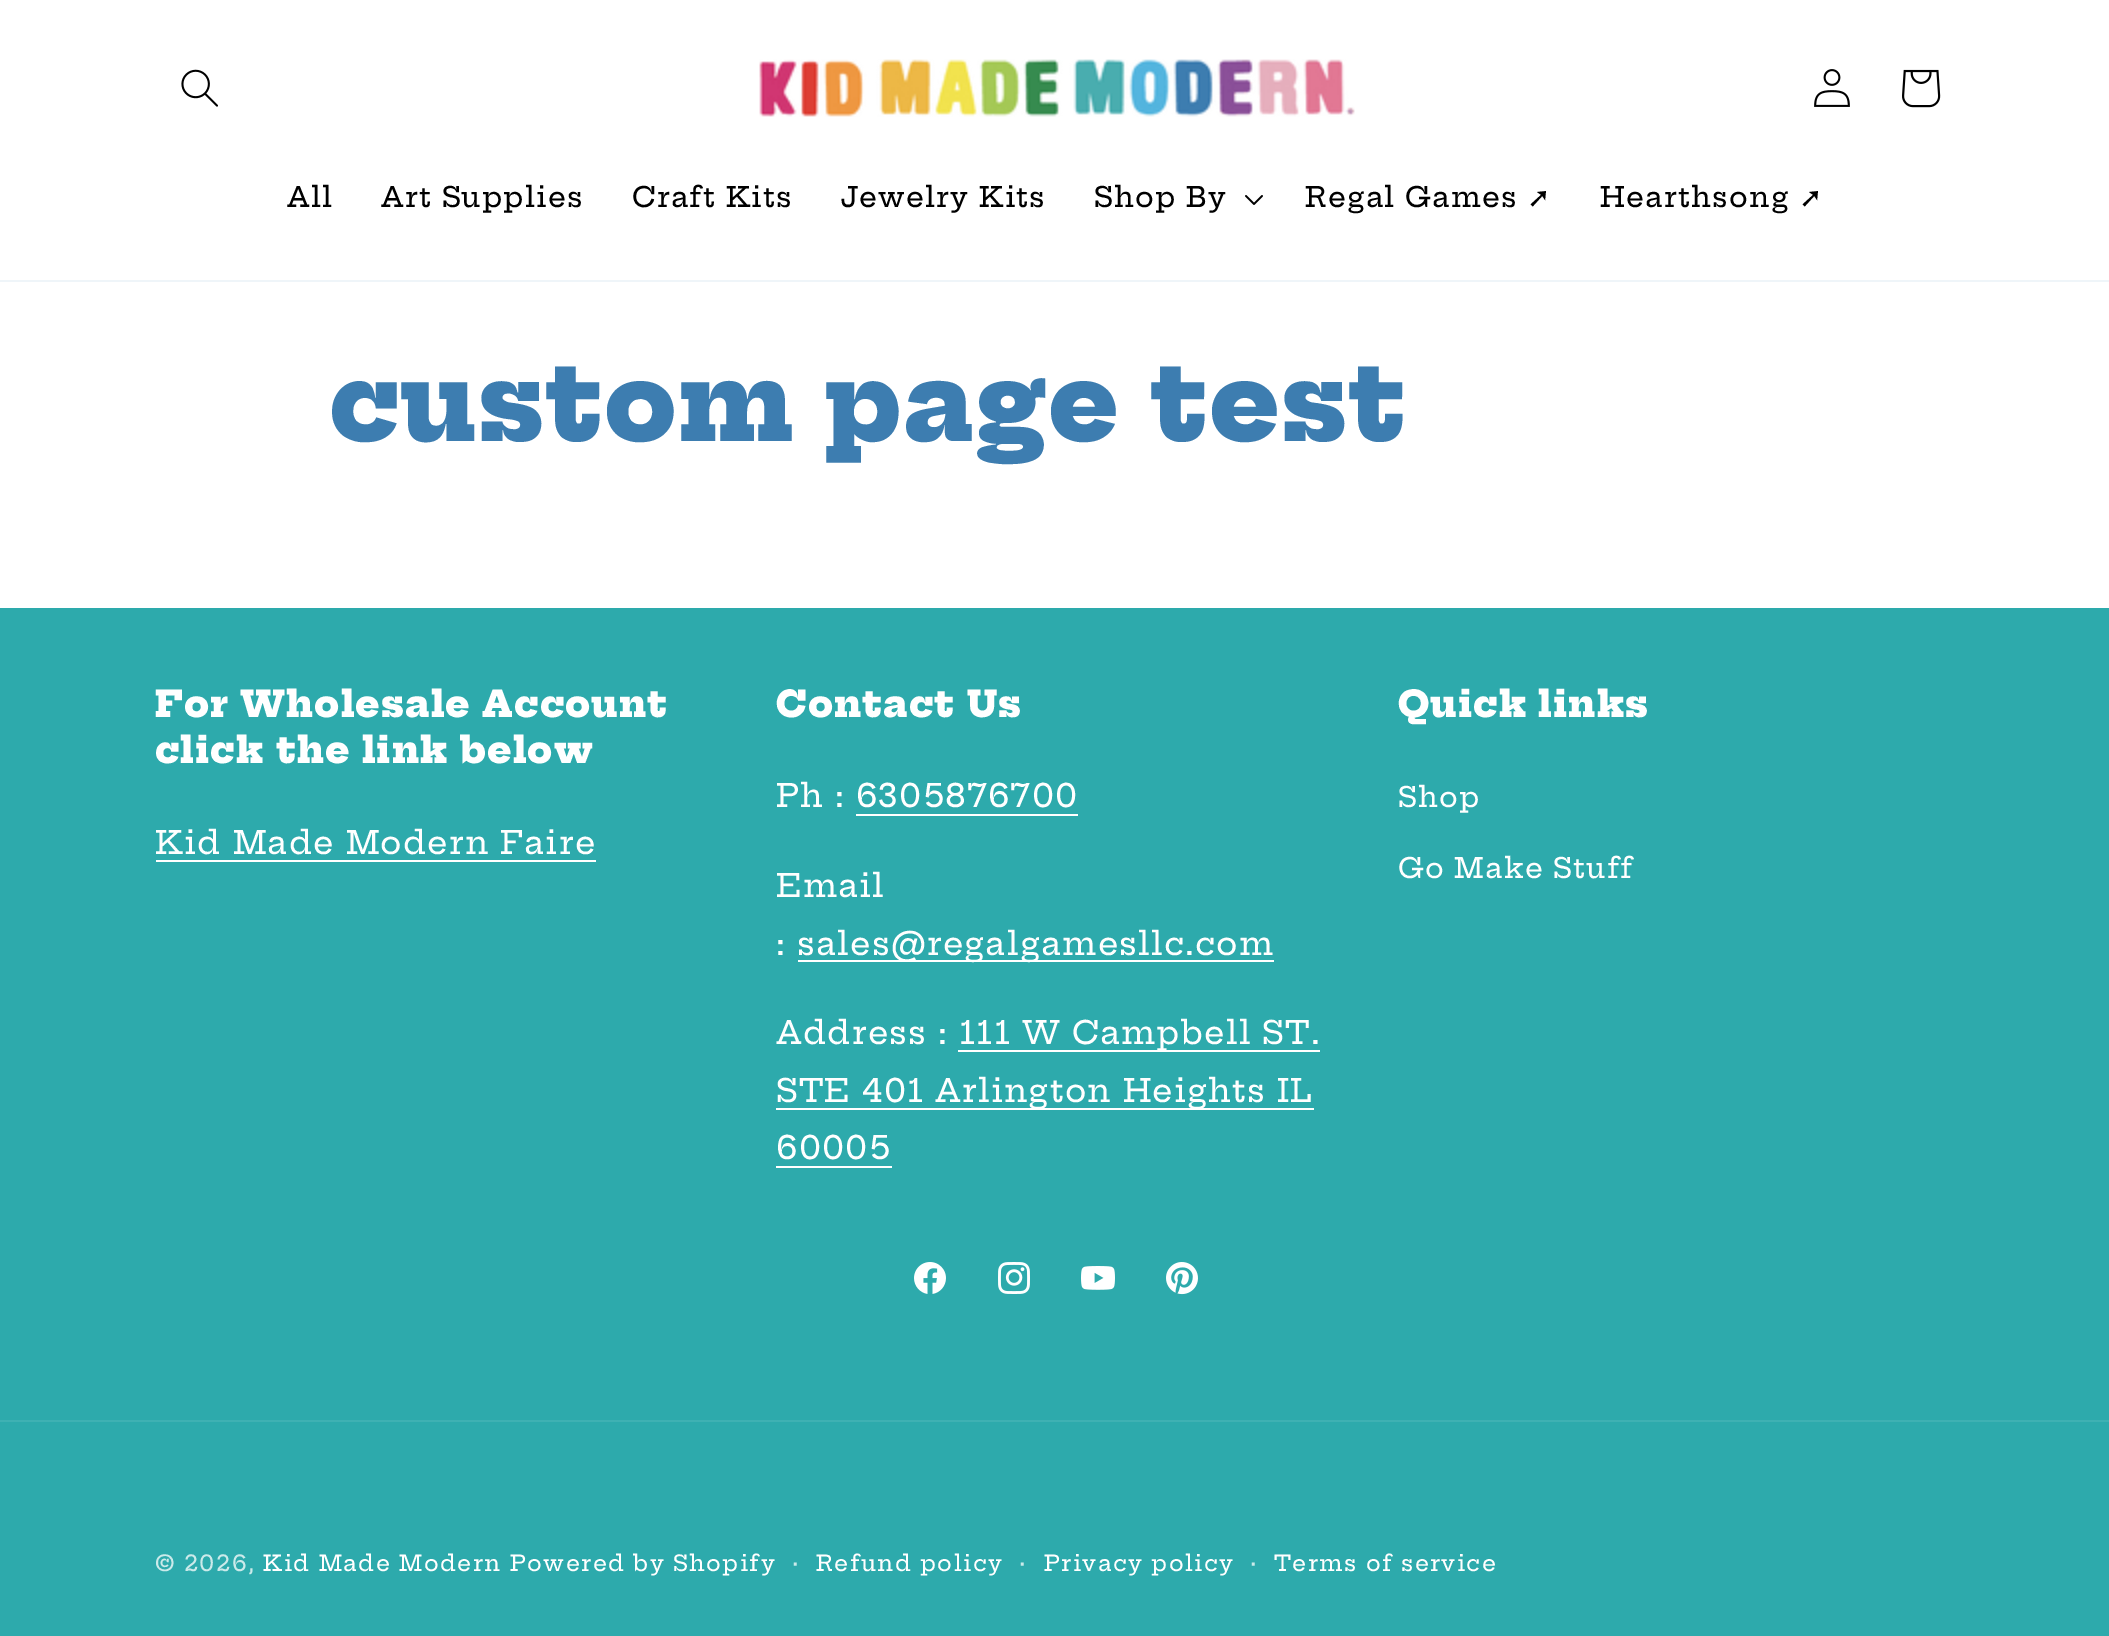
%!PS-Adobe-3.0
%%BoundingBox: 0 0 2109 1636
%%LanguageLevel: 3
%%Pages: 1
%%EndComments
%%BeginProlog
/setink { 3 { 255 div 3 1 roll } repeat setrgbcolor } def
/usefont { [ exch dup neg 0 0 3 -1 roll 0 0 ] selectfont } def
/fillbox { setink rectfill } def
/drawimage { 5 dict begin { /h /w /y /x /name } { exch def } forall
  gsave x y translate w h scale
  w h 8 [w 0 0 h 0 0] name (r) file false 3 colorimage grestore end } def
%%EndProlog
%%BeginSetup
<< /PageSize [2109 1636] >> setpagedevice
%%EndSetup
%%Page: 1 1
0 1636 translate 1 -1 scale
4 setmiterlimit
0 0 2109 1636 255 255 255 fillbox
0 280 2109 2 239 245 249 fillbox
(assets/img1.rgb) 181 69 37 38 drawimage
(assets/img2.rgb) 759 59 596 58 drawimage
(assets/img3.rgb) 1814 69 36 38 drawimage
(assets/img4.rgb) 1902 69 39 39 drawimage
/HeptaSlab-Medium 28 usefont
0 0 0 setink
287 207 moveto 1.2 0 (All) ashow
381 207 moveto 1.2 0 (Art Supplies) ashow
632 207 moveto 1.2 0 (Craft Kits) ashow
841 207 moveto 1.2 0 (Jewelry Kits) ashow
1094 207 moveto 1.2 0 (Shop By) ashow
(assets/img5.rgb) 1245 195 18 10 drawimage
1305 207 moveto 1.2 0 (Regal Games) ashow
/DejaVuSans-Regular 28 usefont
1527 207 moveto 1.2 0 (➚) ashow
/HeptaSlab-Medium 28 usefont
1600 207 moveto 1.2 0 (Hearthsong) ashow
/DejaVuSans-Regular 28 usefont
1799 207 moveto 1.2 0 (➚) ashow
/HeptaSlab-ExtraBold 104 usefont
61 125 176 setink
329 441 moveto 1.2 0 (custom page test) ashow
0 608 2109 1028 45 170 172 fillbox
/HeptaSlab-ExtraBold 36 usefont
255 255 255 setink
155 717 moveto 1.2 0 (For Wholesale Account) ashow
155 763 moveto 1.2 0 (click the link below) ashow
/HeptaSlab-Medium 32 usefont
155 854 moveto 1.2 0 (Kid Made Modern Faire) ashow
156 860 440 2 255 255 255 fillbox
/HeptaSlab-ExtraBold 36 usefont
776 717 moveto 1.2 0 (Contact Us) ashow
/HeptaSlab-Medium 32 usefont
776 807 moveto 1.2 0 (Ph : 6305876700) ashow
856 814 222 2 255 255 255 fillbox
776 897 moveto 1.2 0 (Email) ashow
776 955 moveto 1.2 0 (:) ashow
798 960 476 2 255 255 255 fillbox
797 955 moveto 1.2 0 (sales@regalgamesllc.com) ashow
776 1044 moveto 1.2 0 (Address :) ashow
958 1050 362 2 255 255 255 fillbox
959 1044 moveto 1.2 0 (111 W Campbell ST.) ashow
776 1108 538 2 255 255 255 fillbox
776 1102 moveto 1.2 0 (STE 401 Arlington Heights IL) ashow
776 1159 moveto 1.2 0 (60005) ashow
776 1166 116 2 255 255 255 fillbox
/HeptaSlab-ExtraBold 36 usefont
1398 717 moveto 1.2 0 (Quick links) ashow
/HeptaSlab-Medium 28 usefont
1398 807 moveto 1.2 0 (Shop) ashow
1398 878 moveto 1.2 0 (Go Make Stuff) ashow
(assets/img6.rgb) 914 1262 32 32 drawimage
(assets/img7.rgb) 998 1262 32 32 drawimage
(assets/img8.rgb) 1081 1266 34 24 drawimage
(assets/img9.rgb) 1166 1262 32 33 drawimage
0 1420 2109 2 62 177 179 fillbox
/HeptaSlab-Medium 22 usefont
203 234 234 setink
155 1571 moveto 1.4 0 (© 2026,) ashow
255 255 255 setink
263 1571 moveto 1.4 0 (Kid Made Modern) ashow
510 1571 moveto 1.4 0 (Powered by Shopify) ashow
/HeptaSlab-Medium 24 usefont
203 234 234 setink
792 1571 moveto 1.4 0 (·) ashow
/HeptaSlab-Medium 22 usefont
255 255 255 setink
816 1571 moveto 1.4 0 (Refund policy) ashow
/HeptaSlab-Medium 24 usefont
203 234 234 setink
1019 1571 moveto 1.4 0 (·) ashow
/HeptaSlab-Medium 22 usefont
255 255 255 setink
1044 1571 moveto 1.4 0 (Privacy policy) ashow
/HeptaSlab-Medium 24 usefont
203 234 234 setink
1250 1571 moveto 1.4 0 (·) ashow
/HeptaSlab-Medium 22 usefont
255 255 255 setink
1274 1571 moveto 1.4 0 (Terms of service) ashow
showpage
%%EOF
